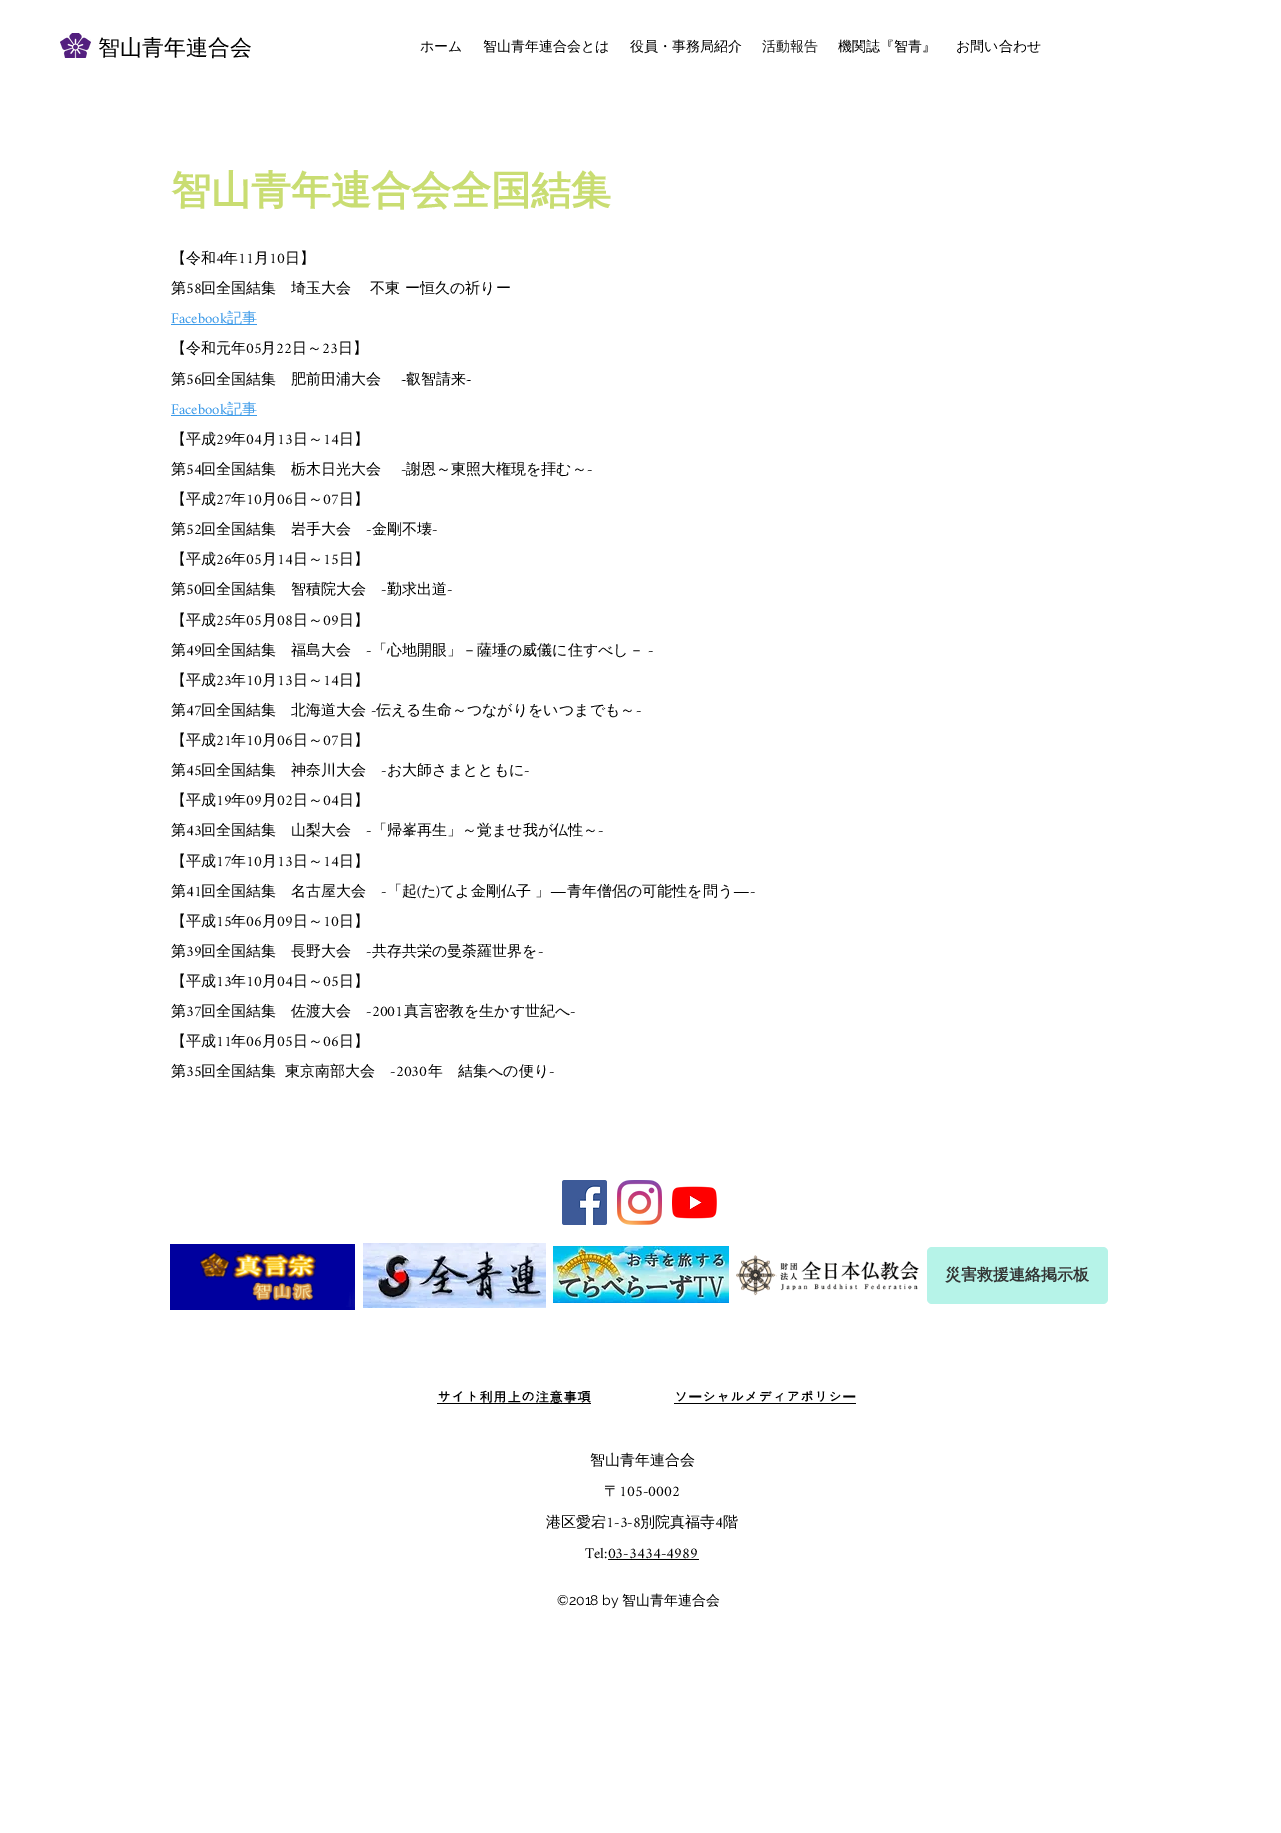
%!PS-Adobe-3.0
%%BoundingBox: 0 0 1281 1833
%%LanguageLevel: 3
%%Pages: 1
%%EndComments
%%BeginProlog
/setink { 3 { 255 div 3 1 roll } repeat setrgbcolor } def
/usefont { [ exch dup neg 0 0 3 -1 roll 0 0 ] selectfont } def
/drawtext { setink usefont moveto show } def
/fillbox { setink rectfill } def
/rrect { 5 dict begin { /r /h /w /y /x } { exch def } forall
  x r add y moveto x w add y 2 copy h add r arct x w add y h add x 1 index r arct
  x y h add x y r arct x y 2 copy exch w add exch r arct closepath end } def
/drawimage { 5 dict begin { /h /w /y /x /name } { exch def } forall
  gsave x y translate w h scale
  w h 8 [w 0 0 h 0 0] name (r) file false 3 colorimage grestore end } def
%%EndProlog
%%BeginSetup
<< /PageSize [1281 1833] >> setpagedevice
%%EndSetup
%%Page: 1 1
0 1833 translate 1 -1 scale
4 setmiterlimit
0 0 1281 1833 255 255 255 fillbox
(assets/img1.rgb) 60 33 31 25 drawimage
(智山青年連合会) 98 55 /WenQuanYiZenHei-Medium 22 0 0 0 drawtext
(ホーム) 420 51 /WenQuanYiZenHei-Medium 14 0 0 0 drawtext
(智山青年連合会とは) 483 51 /WenQuanYiZenHei-Medium 14 0 0 0 drawtext
(役員・事務局紹介) 630 51 /WenQuanYiZenHei-Medium 14 0 0 0 drawtext
(活動報告) 762 51 /WenQuanYiZenHei-Medium 14 25 25 25 drawtext
(機関誌『智青』) 838 51 /WenQuanYiZenHei-Medium 14 0 0 0 drawtext
(お問い合わせ) 956 51 /WenQuanYiZenHei-Medium 14 0 0 0 drawtext
(智山青年連合会全国結集) 171 204 /WenQuanYiZenHei-Bold 40 201 221 114 drawtext
(【令和) 171 263 /WenQuanYiZenHei-Medium 15 0 0 0 drawtext
(4) 216 263 /Amiri-Regular 15 0 0 0 drawtext
(年) 223 263 /WenQuanYiZenHei-Medium 15 0 0 0 drawtext
(11) 238 263 /Amiri-Regular 15 0 0 0 drawtext
(月) 254 263 /WenQuanYiZenHei-Medium 15 0 0 0 drawtext
(10) 269 263 /Amiri-Regular 15 0 0 0 drawtext
(日】) 285 263 /WenQuanYiZenHei-Medium 15 0 0 0 drawtext
(第) 171 293 /WenQuanYiZenHei-Medium 15 0 0 0 drawtext
(58) 186 293 /Amiri-Regular 15 0 0 0 drawtext
(回全国結集　埼玉大会 　不東 ー恒久の祈りー) 201 293 /WenQuanYiZenHei-Medium 15 0 0 0 drawtext
(Facebook) 171 323 /Amiri-Regular 15 61 155 233 drawtext
171 324 86 1 61 155 233 fillbox
(記事) 227 323 /WenQuanYiZenHei-Medium 15 61 155 233 drawtext
(【令和元年) 171 353 /WenQuanYiZenHei-Medium 15 0 0 0 drawtext
(05) 246 353 /Amiri-Regular 15 0 0 0 drawtext
(月) 261 353 /WenQuanYiZenHei-Medium 15 0 0 0 drawtext
(22) 276 353 /Amiri-Regular 15 0 0 0 drawtext
(日～) 292 353 /WenQuanYiZenHei-Medium 15 0 0 0 drawtext
(23) 322 353 /Amiri-Regular 15 0 0 0 drawtext
(日】) 338 353 /WenQuanYiZenHei-Medium 15 0 0 0 drawtext
(第) 171 384 /WenQuanYiZenHei-Medium 15 0 0 0 drawtext
(56) 186 384 /Amiri-Regular 15 0 0 0 drawtext
(回全国結集　肥前田浦大会) 201 384 /WenQuanYiZenHei-Medium 15 0 0 0 drawtext
(‐) 401 384 /Amiri-Regular 15 0 0 0 drawtext
(叡智請来) 406 384 /WenQuanYiZenHei-Medium 15 0 0 0 drawtext
(‐) 466 384 /Amiri-Regular 15 0 0 0 drawtext
(Facebook) 171 414 /Amiri-Regular 15 61 155 233 drawtext
171 415 86 1 61 155 233 fillbox
(記事) 227 414 /WenQuanYiZenHei-Medium 15 61 155 233 drawtext
(【平成) 171 444 /WenQuanYiZenHei-Medium 15 0 0 0 drawtext
(29) 216 444 /Amiri-Regular 15 0 0 0 drawtext
(年) 231 444 /WenQuanYiZenHei-Medium 15 0 0 0 drawtext
(04) 246 444 /Amiri-Regular 15 0 0 0 drawtext
(月) 262 444 /WenQuanYiZenHei-Medium 15 0 0 0 drawtext
(13) 277 444 /Amiri-Regular 15 0 0 0 drawtext
(日～) 293 444 /WenQuanYiZenHei-Medium 15 0 0 0 drawtext
(14) 323 444 /Amiri-Regular 15 0 0 0 drawtext
(日】) 339 444 /WenQuanYiZenHei-Medium 15 0 0 0 drawtext
(第) 171 474 /WenQuanYiZenHei-Medium 15 0 0 0 drawtext
(54) 186 474 /Amiri-Regular 15 0 0 0 drawtext
(回全国結集　栃木日光大会) 201 474 /WenQuanYiZenHei-Medium 15 0 0 0 drawtext
(-) 401 474 /Amiri-Regular 15 0 0 0 drawtext
(謝恩～東照大権現を拝む～) 406 474 /WenQuanYiZenHei-Medium 15 0 0 0 drawtext
(-) 587 474 /Amiri-Regular 15 0 0 0 drawtext
(【平成) 171 504 /WenQuanYiZenHei-Medium 15 0 0 0 drawtext
(27) 216 504 /Amiri-Regular 15 0 0 0 drawtext
(年) 231 504 /WenQuanYiZenHei-Medium 15 0 0 0 drawtext
(10) 246 504 /Amiri-Regular 15 0 0 0 drawtext
(月) 262 504 /WenQuanYiZenHei-Medium 15 0 0 0 drawtext
(06) 277 504 /Amiri-Regular 15 0 0 0 drawtext
(日～) 293 504 /WenQuanYiZenHei-Medium 15 0 0 0 drawtext
(07) 323 504 /Amiri-Regular 15 0 0 0 drawtext
(日】) 339 504 /WenQuanYiZenHei-Medium 15 0 0 0 drawtext
(第) 171 534 /WenQuanYiZenHei-Medium 15 0 0 0 drawtext
(52) 186 534 /Amiri-Regular 15 0 0 0 drawtext
(回全国結集　岩手大会) 201 534 /WenQuanYiZenHei-Medium 15 0 0 0 drawtext
(-) 366 534 /Amiri-Regular 15 0 0 0 drawtext
(金剛不壊) 372 534 /WenQuanYiZenHei-Medium 15 0 0 0 drawtext
(-) 432 534 /Amiri-Regular 15 0 0 0 drawtext
(【平成) 171 564 /WenQuanYiZenHei-Medium 15 0 0 0 drawtext
(26) 216 564 /Amiri-Regular 15 0 0 0 drawtext
(年) 231 564 /WenQuanYiZenHei-Medium 15 0 0 0 drawtext
(05) 246 564 /Amiri-Regular 15 0 0 0 drawtext
(月) 262 564 /WenQuanYiZenHei-Medium 15 0 0 0 drawtext
(14) 277 564 /Amiri-Regular 15 0 0 0 drawtext
(日～) 293 564 /WenQuanYiZenHei-Medium 15 0 0 0 drawtext
(15) 323 564 /Amiri-Regular 15 0 0 0 drawtext
(日】) 339 564 /WenQuanYiZenHei-Medium 15 0 0 0 drawtext
(第) 171 594 /WenQuanYiZenHei-Medium 15 0 0 0 drawtext
(50) 186 594 /Amiri-Regular 15 0 0 0 drawtext
(回全国結集　智積院大会) 201 594 /WenQuanYiZenHei-Medium 15 0 0 0 drawtext
(-) 381 594 /Amiri-Regular 15 0 0 0 drawtext
(勤求出道) 387 594 /WenQuanYiZenHei-Medium 15 0 0 0 drawtext
(-) 447 594 /Amiri-Regular 15 0 0 0 drawtext
(【平成) 171 625 /WenQuanYiZenHei-Medium 15 0 0 0 drawtext
(25) 216 625 /Amiri-Regular 15 0 0 0 drawtext
(年) 231 625 /WenQuanYiZenHei-Medium 15 0 0 0 drawtext
(05) 246 625 /Amiri-Regular 15 0 0 0 drawtext
(月) 262 625 /WenQuanYiZenHei-Medium 15 0 0 0 drawtext
(08) 277 625 /Amiri-Regular 15 0 0 0 drawtext
(日～) 293 625 /WenQuanYiZenHei-Medium 15 0 0 0 drawtext
(09) 323 625 /Amiri-Regular 15 0 0 0 drawtext
(日】) 339 625 /WenQuanYiZenHei-Medium 15 0 0 0 drawtext
(第) 171 655 /WenQuanYiZenHei-Medium 15 0 0 0 drawtext
(49) 186 655 /Amiri-Regular 15 0 0 0 drawtext
(回全国結集　福島大会) 201 655 /WenQuanYiZenHei-Medium 15 0 0 0 drawtext
(-) 366 655 /Amiri-Regular 15 0 0 0 drawtext
(「心地開眼」－薩埵の威儀に住すべし－) 372 655 /WenQuanYiZenHei-Medium 15 0 0 0 drawtext
(-) 648 655 /Amiri-Regular 15 0 0 0 drawtext
(【平成) 171 685 /WenQuanYiZenHei-Medium 15 0 0 0 drawtext
(23) 216 685 /Amiri-Regular 15 0 0 0 drawtext
(年) 231 685 /WenQuanYiZenHei-Medium 15 0 0 0 drawtext
(10) 246 685 /Amiri-Regular 15 0 0 0 drawtext
(月) 262 685 /WenQuanYiZenHei-Medium 15 0 0 0 drawtext
(13) 277 685 /Amiri-Regular 15 0 0 0 drawtext
(日～) 293 685 /WenQuanYiZenHei-Medium 15 0 0 0 drawtext
(14) 323 685 /Amiri-Regular 15 0 0 0 drawtext
(日】) 339 685 /WenQuanYiZenHei-Medium 15 0 0 0 drawtext
(第) 171 715 /WenQuanYiZenHei-Medium 15 0 0 0 drawtext
(47) 186 715 /Amiri-Regular 15 0 0 0 drawtext
(回全国結集　北海道大会) 201 715 /WenQuanYiZenHei-Medium 15 0 0 0 drawtext
(-) 371 715 /Amiri-Regular 15 0 0 0 drawtext
(伝える生命～つながりをいつまでも～) 376 715 /WenQuanYiZenHei-Medium 15 0 0 0 drawtext
(-) 636 715 /Amiri-Regular 15 0 0 0 drawtext
(【平成) 171 745 /WenQuanYiZenHei-Medium 15 0 0 0 drawtext
(21) 216 745 /Amiri-Regular 15 0 0 0 drawtext
(年) 231 745 /WenQuanYiZenHei-Medium 15 0 0 0 drawtext
(10) 246 745 /Amiri-Regular 15 0 0 0 drawtext
(月) 262 745 /WenQuanYiZenHei-Medium 15 0 0 0 drawtext
(06) 277 745 /Amiri-Regular 15 0 0 0 drawtext
(日～) 293 745 /WenQuanYiZenHei-Medium 15 0 0 0 drawtext
(07) 323 745 /Amiri-Regular 15 0 0 0 drawtext
(日】) 339 745 /WenQuanYiZenHei-Medium 15 0 0 0 drawtext
(第) 171 775 /WenQuanYiZenHei-Medium 15 0 0 0 drawtext
(45) 186 775 /Amiri-Regular 15 0 0 0 drawtext
(回全国結集　神奈川大会) 201 775 /WenQuanYiZenHei-Medium 15 0 0 0 drawtext
(-) 381 775 /Amiri-Regular 15 0 0 0 drawtext
(お大師さまとともに) 387 775 /WenQuanYiZenHei-Medium 15 0 0 0 drawtext
(-) 524 775 /Amiri-Regular 15 0 0 0 drawtext
(【平成) 171 805 /WenQuanYiZenHei-Medium 15 0 0 0 drawtext
(19) 216 805 /Amiri-Regular 15 0 0 0 drawtext
(年) 231 805 /WenQuanYiZenHei-Medium 15 0 0 0 drawtext
(09) 246 805 /Amiri-Regular 15 0 0 0 drawtext
(月) 262 805 /WenQuanYiZenHei-Medium 15 0 0 0 drawtext
(02) 277 805 /Amiri-Regular 15 0 0 0 drawtext
(日～) 293 805 /WenQuanYiZenHei-Medium 15 0 0 0 drawtext
(04) 323 805 /Amiri-Regular 15 0 0 0 drawtext
(日】) 339 805 /WenQuanYiZenHei-Medium 15 0 0 0 drawtext
(第) 171 835 /WenQuanYiZenHei-Medium 15 0 0 0 drawtext
(43) 186 835 /Amiri-Regular 15 0 0 0 drawtext
(回全国結集　山梨大会) 201 835 /WenQuanYiZenHei-Medium 15 0 0 0 drawtext
(-) 366 835 /Amiri-Regular 15 0 0 0 drawtext
(「帰峯再生」～覚ませ我が仏性～) 372 835 /WenQuanYiZenHei-Medium 15 0 0 0 drawtext
(-) 598 835 /Amiri-Regular 15 0 0 0 drawtext
(【平成) 171 866 /WenQuanYiZenHei-Medium 15 0 0 0 drawtext
(17) 216 866 /Amiri-Regular 15 0 0 0 drawtext
(年) 231 866 /WenQuanYiZenHei-Medium 15 0 0 0 drawtext
(10) 246 866 /Amiri-Regular 15 0 0 0 drawtext
(月) 262 866 /WenQuanYiZenHei-Medium 15 0 0 0 drawtext
(13) 277 866 /Amiri-Regular 15 0 0 0 drawtext
(日～) 293 866 /WenQuanYiZenHei-Medium 15 0 0 0 drawtext
(14) 323 866 /Amiri-Regular 15 0 0 0 drawtext
(日】) 339 866 /WenQuanYiZenHei-Medium 15 0 0 0 drawtext
(第) 171 896 /WenQuanYiZenHei-Medium 15 0 0 0 drawtext
(41) 186 896 /Amiri-Regular 15 0 0 0 drawtext
(回全国結集　名古屋大会) 201 896 /WenQuanYiZenHei-Medium 15 0 0 0 drawtext
(-) 381 896 /Amiri-Regular 15 0 0 0 drawtext
(「起) 387 896 /WenQuanYiZenHei-Medium 15 0 0 0 drawtext
(\() 417 896 /Amiri-Regular 15 0 0 0 drawtext
(た) 421 896 /WenQuanYiZenHei-Medium 15 0 0 0 drawtext
(\)) 436 896 /Amiri-Regular 15 0 0 0 drawtext
(てよ金剛仏子 」) 440 896 /WenQuanYiZenHei-Medium 15 0 0 0 drawtext
(―) 550 896 /Amiri-Regular 15 0 0 0 drawtext
(青年僧侶の可能性を問う) 567 896 /WenQuanYiZenHei-Medium 15 0 0 0 drawtext
(―-) 733 896 /Amiri-Regular 15 0 0 0 drawtext
(【平成) 171 926 /WenQuanYiZenHei-Medium 15 0 0 0 drawtext
(15) 216 926 /Amiri-Regular 15 0 0 0 drawtext
(年) 231 926 /WenQuanYiZenHei-Medium 15 0 0 0 drawtext
(06) 246 926 /Amiri-Regular 15 0 0 0 drawtext
(月) 262 926 /WenQuanYiZenHei-Medium 15 0 0 0 drawtext
(09) 277 926 /Amiri-Regular 15 0 0 0 drawtext
(日～) 293 926 /WenQuanYiZenHei-Medium 15 0 0 0 drawtext
(10) 323 926 /Amiri-Regular 15 0 0 0 drawtext
(日】) 339 926 /WenQuanYiZenHei-Medium 15 0 0 0 drawtext
(第) 171 956 /WenQuanYiZenHei-Medium 15 0 0 0 drawtext
(39) 186 956 /Amiri-Regular 15 0 0 0 drawtext
(回全国結集　長野大会) 201 956 /WenQuanYiZenHei-Medium 15 0 0 0 drawtext
(-) 366 956 /Amiri-Regular 15 0 0 0 drawtext
(共存共栄の曼荼羅世界を) 372 956 /WenQuanYiZenHei-Medium 15 0 0 0 drawtext
(-) 538 956 /Amiri-Regular 15 0 0 0 drawtext
(【平成) 171 986 /WenQuanYiZenHei-Medium 15 0 0 0 drawtext
(13) 216 986 /Amiri-Regular 15 0 0 0 drawtext
(年) 231 986 /WenQuanYiZenHei-Medium 15 0 0 0 drawtext
(10) 246 986 /Amiri-Regular 15 0 0 0 drawtext
(月) 262 986 /WenQuanYiZenHei-Medium 15 0 0 0 drawtext
(04) 277 986 /Amiri-Regular 15 0 0 0 drawtext
(日～) 293 986 /WenQuanYiZenHei-Medium 15 0 0 0 drawtext
(05) 323 986 /Amiri-Regular 15 0 0 0 drawtext
(日】) 339 986 /WenQuanYiZenHei-Medium 15 0 0 0 drawtext
(第) 171 1016 /WenQuanYiZenHei-Medium 15 0 0 0 drawtext
(37) 186 1016 /Amiri-Regular 15 0 0 0 drawtext
(回全国結集　佐渡大会) 201 1016 /WenQuanYiZenHei-Medium 15 0 0 0 drawtext
(-2001) 366 1016 /Amiri-Regular 15 0 0 0 drawtext
(真言密教を生かす世紀へ) 404 1016 /WenQuanYiZenHei-Medium 15 0 0 0 drawtext
(-) 570 1016 /Amiri-Regular 15 0 0 0 drawtext
(【平成) 171 1046 /WenQuanYiZenHei-Medium 15 0 0 0 drawtext
(11) 216 1046 /Amiri-Regular 15 0 0 0 drawtext
(年) 231 1046 /WenQuanYiZenHei-Medium 15 0 0 0 drawtext
(06) 246 1046 /Amiri-Regular 15 0 0 0 drawtext
(月) 262 1046 /WenQuanYiZenHei-Medium 15 0 0 0 drawtext
(05) 277 1046 /Amiri-Regular 15 0 0 0 drawtext
(日～) 293 1046 /WenQuanYiZenHei-Medium 15 0 0 0 drawtext
(06) 323 1046 /Amiri-Regular 15 0 0 0 drawtext
(日】) 339 1046 /WenQuanYiZenHei-Medium 15 0 0 0 drawtext
(第) 171 1076 /WenQuanYiZenHei-Medium 15 0 0 0 drawtext
(35) 186 1076 /Amiri-Regular 15 0 0 0 drawtext
(回全国結集) 201 1076 /WenQuanYiZenHei-Medium 15 0 0 0 drawtext
(東京南部大会) 285 1076 /WenQuanYiZenHei-Medium 15 0 0 0 drawtext
(-2030) 390 1076 /Amiri-Regular 15 0 0 0 drawtext
(年　結集への便り) 428 1076 /WenQuanYiZenHei-Medium 15 0 0 0 drawtext
(-) 549 1076 /Amiri-Regular 15 0 0 0 drawtext
(assets/img2.rgb) 562 1180 45 45 drawimage
(assets/img3.rgb) 617 1180 45 45 drawimage
(assets/img4.rgb) 672 1186 45 33 drawimage
(assets/img5.rgb) 170 1244 185 66 drawimage
(assets/img6.rgb) 363 1243 183 65 drawimage
(assets/img7.rgb) 553 1246 176 57 drawimage
(assets/img8.rgb) 736 1255 183 41 drawimage
182 243 232 setink
927 1247 181 57 5 rrect fill
(災害救援連絡掲示板) 945 1280 /WenQuanYiZenHei-Bold 16 50 50 50 drawtext
(サイト利用上の注意事項) 437 1402 /Dotum-Bold 14 0 0 0 drawtext
437 1403 154 1 0 0 0 fillbox
(ソ) 674 1402 /Dotum-Bold 14 0 0 0 drawtext
674 1403 182 1 0 0 0 fillbox
(ー) 688 1402 /WenQuanYiZenHei-Bold 14 0 0 0 drawtext
(シャルメディアポリシ) 702 1402 /Dotum-Bold 14 0 0 0 drawtext
(ー) 842 1402 /WenQuanYiZenHei-Bold 14 0 0 0 drawtext
(智山青年連合会) 590 1465 /WenQuanYiZenHei-Medium 15 0 0 0 drawtext
(〒) 604 1496 /WenQuanYiZenHei-Medium 15 0 0 0 drawtext
(105-0002) 619 1496 /Amiri-Regular 15 0 0 0 drawtext
(港区愛宕) 546 1527 /WenQuanYiZenHei-Medium 15 0 0 0 drawtext
(1-3-8) 606 1527 /Amiri-Regular 15 0 0 0 drawtext
(別院真福寺) 640 1527 /WenQuanYiZenHei-Medium 15 0 0 0 drawtext
(4) 715 1527 /Amiri-Regular 15 0 0 0 drawtext
(階) 723 1527 /WenQuanYiZenHei-Medium 15 0 0 0 drawtext
(Tel:03-3434-4989) 585 1558 /Amiri-Regular 15 0 0 0 drawtext
608 1559 91 1 0 0 0 fillbox
(©2018 by) 557 1605 /Raleway-Regular 14 0 0 0 drawtext
(智山青年連合会) 622 1605 /WenQuanYiZenHei-Medium 14 0 0 0 drawtext
showpage
%%EOF
